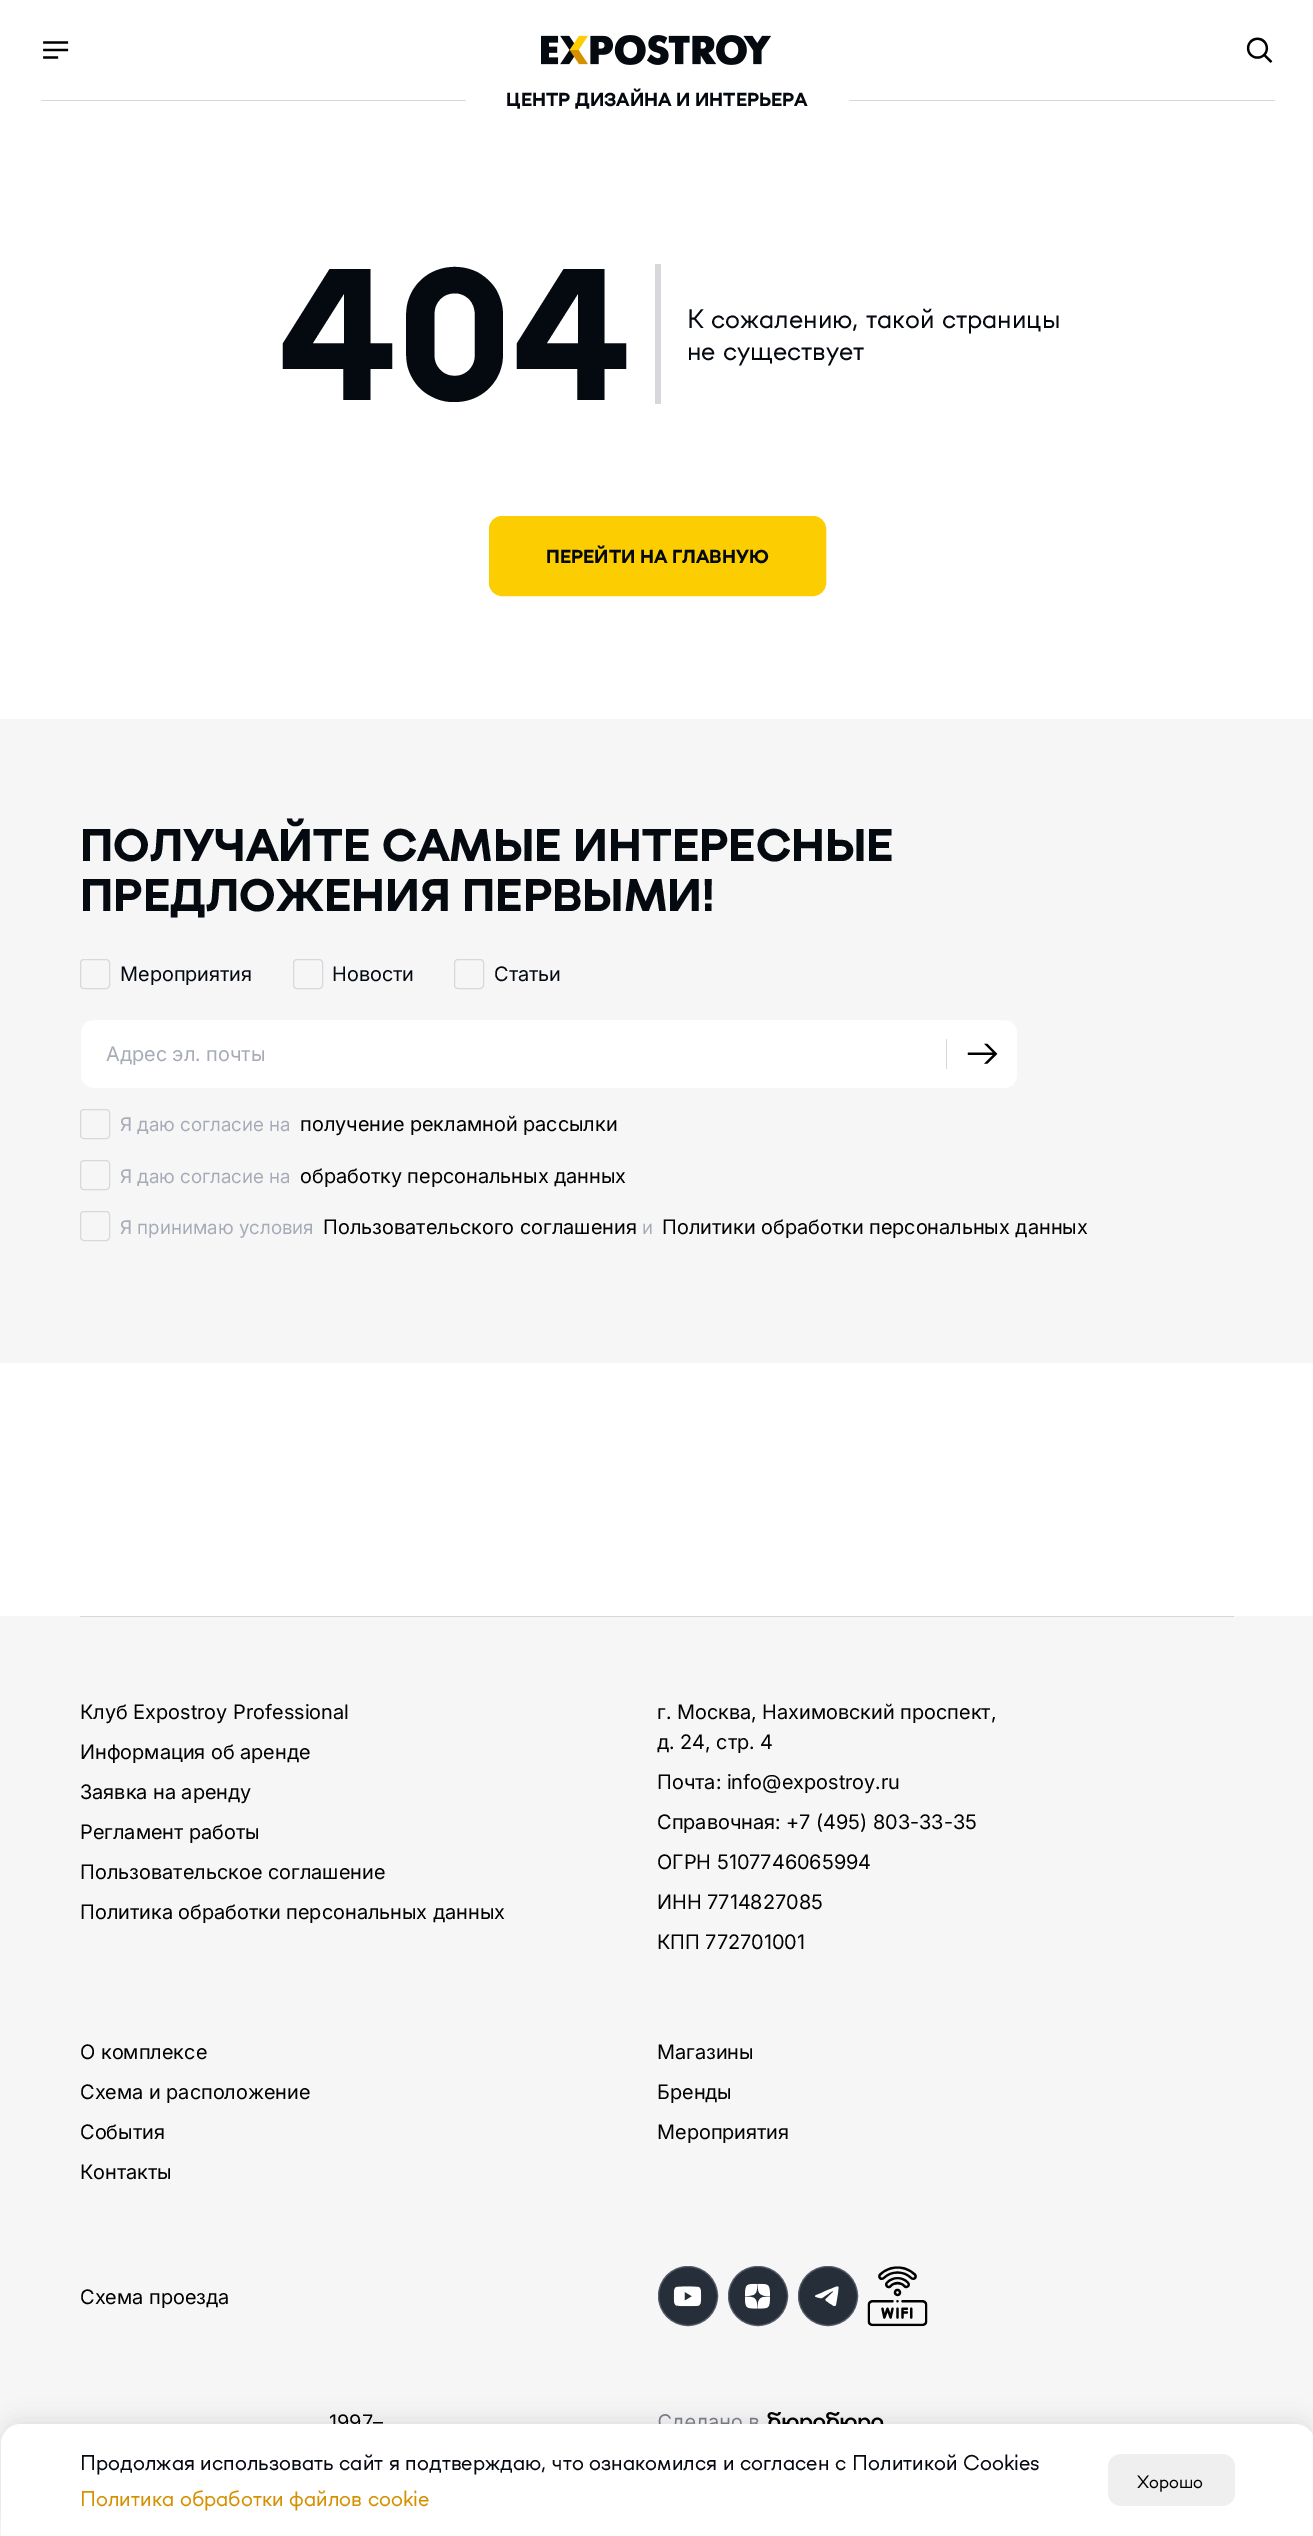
%!PS-Adobe-3.0
%%BoundingBox: 0 0 1313 2536
%%LanguageLevel: 3
%%Pages: 1
%%EndComments
%%BeginProlog
/setink { 3 { 255 div 3 1 roll } repeat setrgbcolor } def
/usefont { [ exch dup neg 0 0 3 -1 roll 0 0 ] selectfont } def
/drawtext { setink usefont moveto show } def
/fillbox { setink rectfill } def
/setalpha { dup .setfillconstantalpha .setstrokeconstantalpha } def
/disc { newpath 0 360 arc closepath } def
/rrect { 5 dict begin { /r /h /w /y /x } { exch def } forall
  x r add y moveto x w add y 2 copy h add r arct x w add y h add x 1 index r arct
  x y h add x y r arct x y 2 copy exch w add exch r arct closepath end } def
/softshadow { 12 dict begin { /a /b /q /h /w /y /x } { exch def } forall gsave /was 0 def
  9 -2 -9 { dup b mul 4 div /e exch def 1 sub .425 mul 2.718 exch exp 1 add a .99 .min exch div /now exch def
    1 1 now sub 1 was sub div sub setalpha /was now def
    w h .min e 2 mul add 0 gt { x e sub y e sub w e 2 mul add h e 2 mul add
      q e add b .6 mul add w h .min 2 div e add .min 0 .max rrect fill } if } for grestore end } def
/drawimage { 5 dict begin { /h /w /y /x /name } { exch def } forall
  gsave x y translate w h scale
  w h 8 [w 0 0 h 0 0] name (r) file false 3 colorimage grestore end } def
%%EndProlog
%%BeginSetup
<< /PageSize [1313 2536] /PageUsesTransparency true >> setpagedevice
%%EndSetup
%%Page: 1 1
0 .pushpdf14devicefilter
0 2536 translate 1 -1 scale
4 setmiterlimit
0 0 1313 2536 255 255 255 fillbox
(assets/img1.rgb) 43 41 26 18 drawimage
(assets/img2.rgb) 541 35 230 30 drawimage
(assets/img3.rgb) 1246 37 27 26 drawimage
41 100 425 1 214 216 219 fillbox
(ЦЕНТР ДИЗАЙНА И ИНТЕРЬЕРА) 506 106 /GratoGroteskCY-Bold 17.5 5 9 16 drawtext
849 100 426 1 214 216 219 fillbox
655 264 6 140 214 216 219 fillbox
(404) 279 400 /GratoGroteskCY-Bold 175 5 9 16 drawtext
(К сожалению, такой страницы) 687 328 /GratoGroteskCY-Regular 25 5 9 16 drawtext
(не существует) 687 360 /GratoGroteskCY-Regular 25 5 9 16 drawtext
252 206 1 setink
489.5 516.5 336 79 12.5 rrect gsave fill grestore
stroke
(ПЕРЕЙТИ НА ГЛАВНУЮ) 546 563 /GratoGroteskCY-Bold 17.5 5 9 16 drawtext
0 719 1313 644 246 246 246 fillbox
(ПОЛУЧАЙТЕ САМЫЕ ИНТЕРЕСНЫЕ) 80 861 /GratoGroteskCY-Bold 42.5 5 9 16 drawtext
(ПРЕДЛОЖЕНИЯ ПЕРВЫМИ!) 80 911 /GratoGroteskCY-Bold 42.5 5 9 16 drawtext
214 216 219 setink
80.5 959.5 29 29 3.5 rrect stroke
(Мероприятия) 120 981 /Inter-Regular 20 5 9 16 drawtext
214 216 219 setink
293.5 959.5 29 29 3.5 rrect stroke
(Новости) 332 981 /Inter-Regular 20 5 9 16 drawtext
214 216 219 setink
454.5 959.5 29 29 3.5 rrect stroke
(Статьи) 494 981 /Inter-Regular 20 5 9 16 drawtext
255 255 255 setink
80.5 1019.5 937 69 12.5 rrect gsave fill grestore
246 246 246 setink
stroke
(Адрес эл. почты) 106 1061 /Inter-Regular 20 166 171 183 drawtext
946 1039 1 30 214 216 219 fillbox
(assets/img4.rgb) 967 1043 31 21 drawimage
80.5 1109.5 29 29 3.5 rrect stroke
(Я даю согласие на) 120 1131 /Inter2-Regular 18.75 166 171 183 drawtext
(получение рекламной рассылки) 300 1131 /Inter-Regular 20 0 0 0 drawtext
214 216 219 setink
80.5 1160.5 29 29 3.5 rrect stroke
(Я даю согласие на) 120 1183 /Inter2-Regular 18.75 166 171 183 drawtext
(обработку персональных данных) 300 1183 /Inter-Regular 20 0 0 0 drawtext
214 216 219 setink
80.5 1211.5 29 29 3.5 rrect stroke
(Я принимаю условия) 120 1234 /Inter2-Regular 18.75 166 171 183 drawtext
(Пользовательского соглашения) 323 1234 /Inter-Regular 20 0 0 0 drawtext
(и) 642 1234 /Inter2-Regular 18.75 166 171 183 drawtext
(Политики обработки персональных данных) 662 1234 /Inter-Regular 20 0 0 0 drawtext
0 1616 1313 920 246 246 246 fillbox
80 1616 1154 1 214 216 219 fillbox
(Клуб Expostroy Professional) 80 1719 /Inter-Regular 20 0 0 0 drawtext
(Информация об аренде) 80 1759 /Inter-Regular 20 0 0 0 drawtext
(Заявка на аренду) 80 1799 /Inter-Regular 20 0 0 0 drawtext
(Регламент работы) 80 1839 /Inter-Regular 20 0 0 0 drawtext
(Пользовательское соглашение) 80 1879 /Inter-Regular 20 0 0 0 drawtext
(Политика обработки персональных данных) 80 1919 /Inter-Regular 20 0 0 0 drawtext
(г. Москва, Нахимовский проспект,) 657 1719 /Inter-Regular 20 0 0 0 drawtext
(д. 24, стр. 4) 657 1749 /Inter-Regular 20 0 0 0 drawtext
(Почта: info@expostroy.ru) 657 1789 /Inter-Regular 20 0 0 0 drawtext
(Справочная: +7 \(495\) 803-33-35) 657 1829 /Inter-Regular 20 0 0 0 drawtext
(ОГРН 5107746065994) 657 1869 /Inter-Regular 20 0 0 0 drawtext
(ИНН 7714827085) 657 1909 /Inter-Regular 20 0 0 0 drawtext
(КПП 772701001) 657 1949 /Inter-Regular 20 0 0 0 drawtext
(О комплексе) 80 2059 /Inter-Regular 20 0 0 0 drawtext
(Схема и расположение) 80 2099 /Inter-Regular 20 0 0 0 drawtext
(События) 80 2139 /Inter-Regular 20 0 0 0 drawtext
(Контакты) 80 2179 /Inter-Regular 20 0 0 0 drawtext
(Магазины) 657 2059 /Inter-Regular 20 0 0 0 drawtext
(Бренды) 657 2099 /Inter-Regular 20 0 0 0 drawtext
(Мероприятия) 657 2139 /Inter-Regular 20 0 0 0 drawtext
(Схема проезда) 80 2304 /Inter-Regular 20 0 0 0 drawtext
38 46 57 setink
688 2296 29.5 disc gsave fill grestore
86 94 107 setink
stroke
(assets/img5.rgb) 673 2286 29 21 drawimage
38 46 57 setink
758 2296 29.5 disc gsave fill grestore
86 94 107 setink
stroke
(assets/img6.rgb) 745 2283 25 26 drawimage
38 46 57 setink
828 2296 29.5 disc gsave fill grestore
86 94 107 setink
stroke
(assets/img7.rgb) 815 2286 24 21 drawimage
(assets/img8.rgb) 867 2266 61 61 drawimage
(1997–) 329 2429 /Inter-Regular 20 0 0 0 drawtext
(assets/img9.rgb) 658 2412 226 12 drawimage
1 2419 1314 112 20 10 0.08 softshadow
255 255 255 setink
21 2424 moveto 1295 2424 lineto 1306 2424 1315 2433 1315 2444 curveto 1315 2536 lineto 1 2536 lineto 1 2444 lineto 1 2433 10 2424 21 2424 curveto closepath fill
(Продолжая использовать сайт я подтверждаю, что ознакомился и согласен с Политикой Cookies) 80 2470 /GratoGroteskCY-Regular 20 5 9 16 drawtext
(Политика обработки файлов cookie) 80 2506 /GratoGroteskCY-Regular 20 213 144 0 drawtext
239 239 239 setink
1108 2454 127 52 13 rrect fill
(Хорошо) 1137 2488 /GratoGroteskCY-Regular 16.5 0 0 0 drawtext
.poppdf14devicefilter showpage
%%EOF
